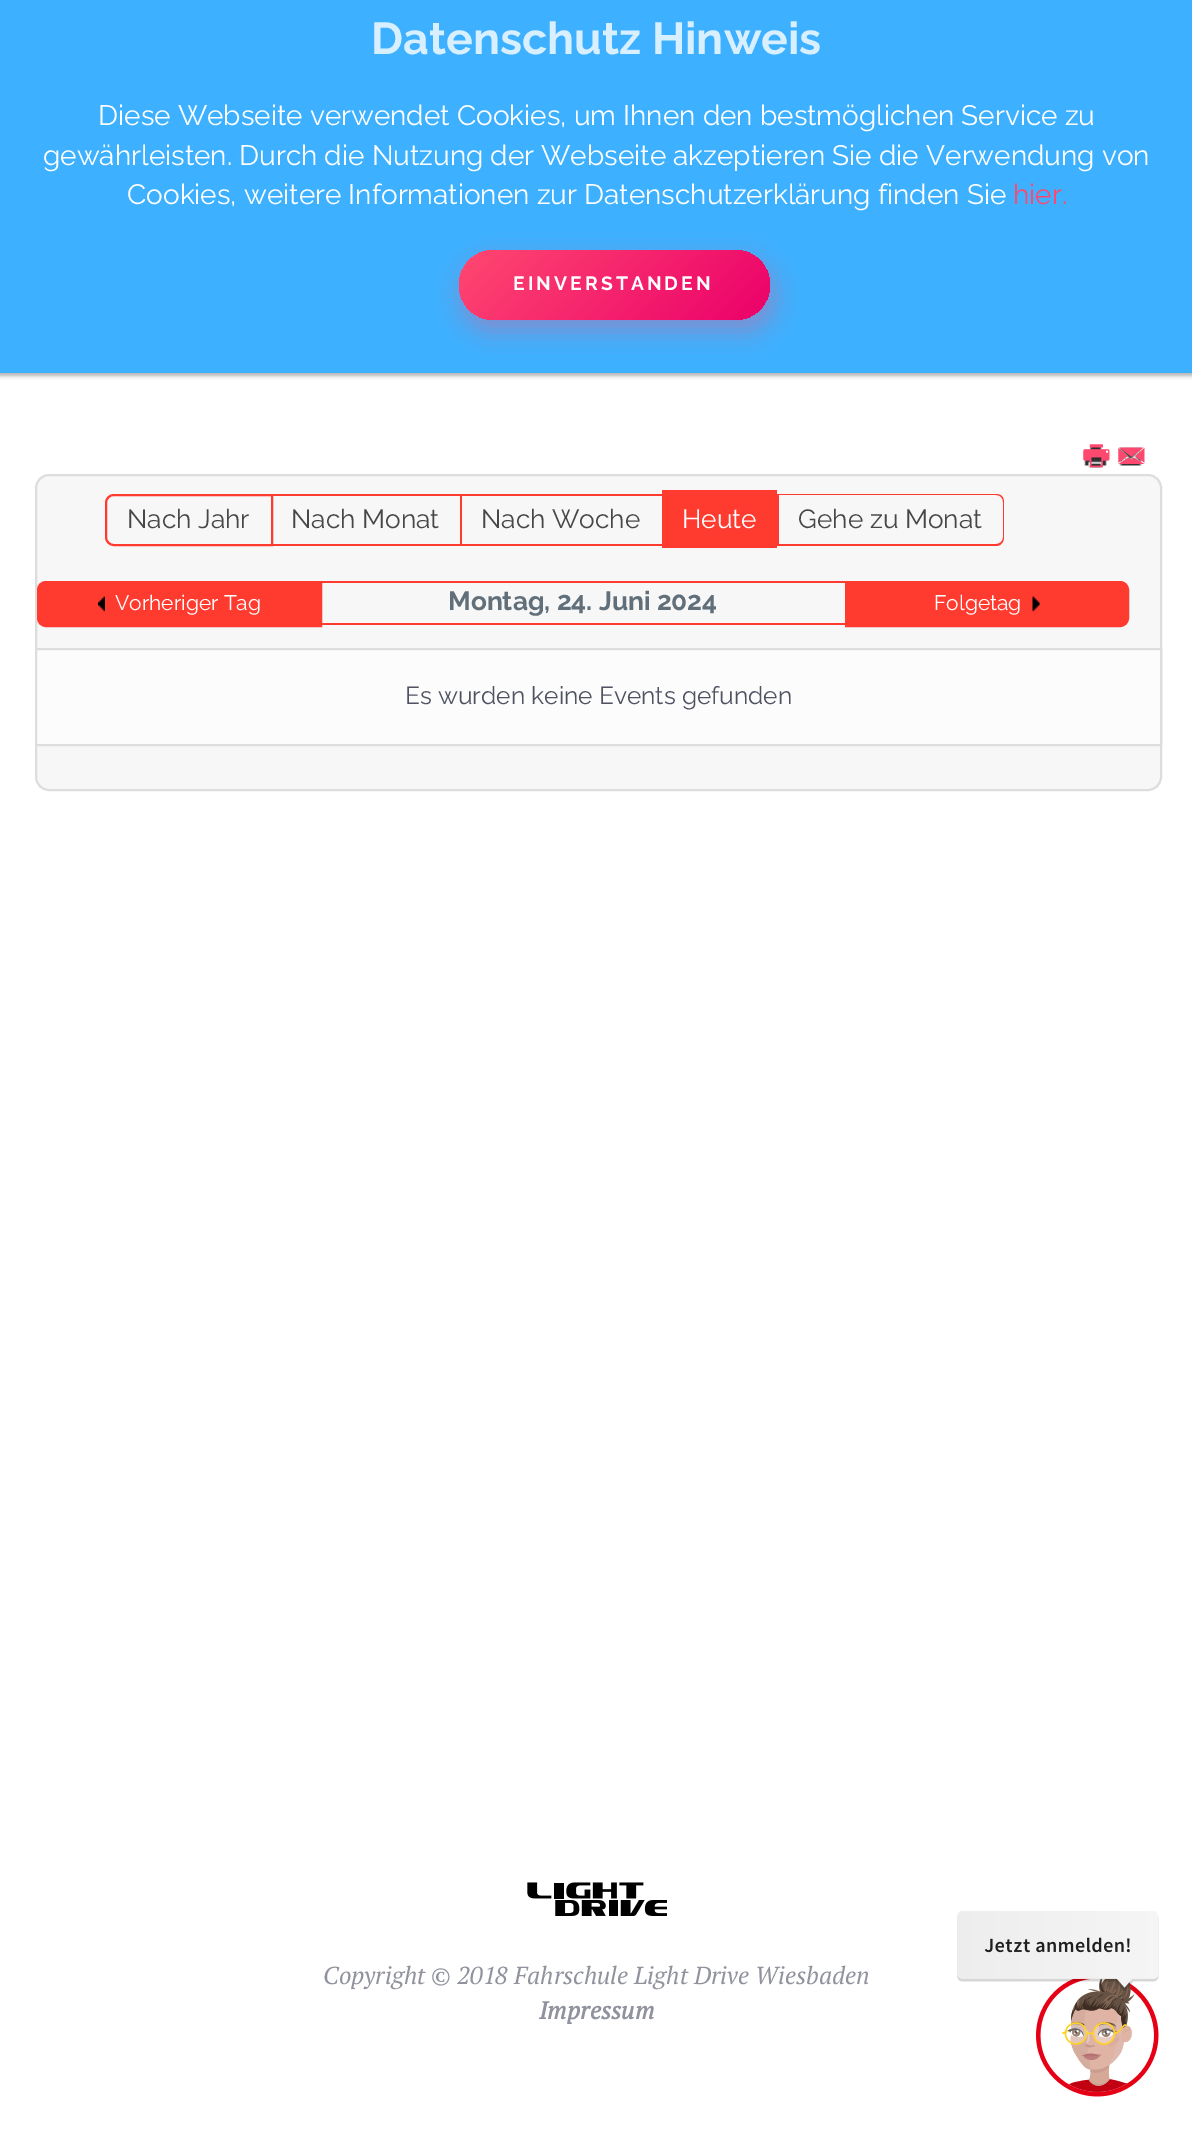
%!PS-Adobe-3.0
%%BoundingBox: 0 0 1192 2130
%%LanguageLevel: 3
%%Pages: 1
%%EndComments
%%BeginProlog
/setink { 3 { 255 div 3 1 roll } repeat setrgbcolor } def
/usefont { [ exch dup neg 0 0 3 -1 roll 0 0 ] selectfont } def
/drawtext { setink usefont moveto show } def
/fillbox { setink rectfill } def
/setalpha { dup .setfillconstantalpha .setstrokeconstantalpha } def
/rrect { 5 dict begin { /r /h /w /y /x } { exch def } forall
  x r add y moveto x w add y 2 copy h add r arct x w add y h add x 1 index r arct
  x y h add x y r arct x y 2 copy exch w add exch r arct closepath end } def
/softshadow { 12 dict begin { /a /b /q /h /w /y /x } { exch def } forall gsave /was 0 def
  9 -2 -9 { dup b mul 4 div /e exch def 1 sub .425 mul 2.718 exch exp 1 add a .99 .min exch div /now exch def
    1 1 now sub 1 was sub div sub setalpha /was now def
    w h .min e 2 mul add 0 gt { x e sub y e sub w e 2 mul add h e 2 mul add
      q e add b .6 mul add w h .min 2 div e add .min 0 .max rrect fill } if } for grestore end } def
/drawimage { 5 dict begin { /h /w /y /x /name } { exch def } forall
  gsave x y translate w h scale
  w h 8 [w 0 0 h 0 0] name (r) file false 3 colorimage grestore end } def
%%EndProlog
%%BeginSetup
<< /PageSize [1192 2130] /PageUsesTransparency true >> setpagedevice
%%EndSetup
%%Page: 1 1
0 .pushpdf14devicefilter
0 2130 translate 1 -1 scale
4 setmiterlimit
0 0 1192 2130 255 255 255 fillbox
0 0 1 setink
-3 -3 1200 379 0 2 0.3 softshadow
0 0 1192 373 61 177 255 fillbox
(Datenschutz Hinweis) 371 54 /Raleway-Bold 44.75 216 239 255 drawtext
(Diese Webseite verwendet Cookies, um Ihnen den bestmöglichen Service zu) 98 125 /Raleway-Regular 28 255 255 255 drawtext
(gewährleisten. Durch die Nutzung der Webseite akzeptieren Sie die Verwendung von) 43 165 /Raleway-Regular 28 255 255 255 drawtext
(Cookies, weitere Informationen zur Datenschutzerklärung finden Sie) 127 204 /Raleway-Regular 28 255 255 255 drawtext
(hier.) 1013 204 /Raleway-Regular 28 255 72 112 drawtext
462 261 312 70 35 13 0.35 softshadow
gsave 459 250 311 70 35 rrect clip newpath
<< /ShadingType 2 /ColorSpace /DeviceRGB /Coords [519 190 710 381] /Extend [true true] /Function << /FunctionType 2 /Domain [0 1] /C0 [1 0.282 0.439] /C1 [0.922 0 0.416] /N 1 >> >> shfill grestore
/Raleway-Bold 19.25 usefont
255 255 255 setink
513 290 moveto 3.1 0 (EINVERSTANDEN) ashow
(assets/img1.rgb) 1084 446 23 22 drawimage
(assets/img2.rgb) 1083 444 27 24 drawimage
(assets/img3.rgb) 1119 447 23 19 drawimage
(assets/img4.rgb) 1118 447 27 17 drawimage
247 247 247 setink
36 475 1125 315 13 rrect gsave fill grestore
221 221 221 setink
2 setlinewidth
stroke
255 59 48 setink
114 495 moveto 272 495 lineto 272 545 lineto 114 545 lineto 109.5 545 106 541.5 106 537 curveto 106 503 lineto 106 498.5 109.5 495 114 495 curveto closepath stroke
(Nach Jahr) 127 528 /Raleway-Regular 26.25 71 71 71 drawtext
271 494 191 2 255 59 48 fillbox
460 494 2 52 255 59 48 fillbox
271 544 392 2 255 59 48 fillbox
(Nach Monat) 291 528 /Raleway-Regular 26.25 71 71 71 drawtext
460 494 203 2 255 59 48 fillbox
(Nach Woche) 481 528 /Raleway-Regular 26.25 71 71 71 drawtext
777 494 2 52 255 59 48 fillbox
662 490 115 58 255 59 48 fillbox
(Heute) 682 528 /Raleway-Regular 26.25 255 255 255 drawtext
255 59 48 setink
777 494 moveto 996 494 lineto 1001 494 1004 497 1004 502 curveto 1004 537 lineto 1004 542 1001 546 996 546 curveto 777 546 lineto closepath 777 495 moveto 996 495 lineto 1000 495 1003 498 1003 502 curveto 1003 537 lineto 1003 541 1000 544 996 544 curveto 777 544 lineto closepath eofill
(Gehe zu Monat) 798 528 /Raleway-Regular 26.25 71 71 71 drawtext
255 59 48 setink
46 582 moveto 321 582 lineto 321 626 lineto 46 626 lineto 41.5 626 38 622.5 38 618 curveto 38 590 lineto 38 585.5 41.5 582 46 582 curveto closepath gsave fill grestore
stroke
(assets/img5.rgb) 98 596 7 16 drawimage
(Vorheriger Tag) 115 610 /Raleway-Regular 21 255 255 255 drawtext
322 581 523 2 255 59 48 fillbox
322 623 523 2 255 59 48 fillbox
(Montag, 24. Juni 2024) 448 610 /Raleway-Bold 26.25 96 111 121 drawtext
255 59 48 setink
846 582 moveto 1120 582 lineto 1124.5 582 1128 585.5 1128 590 curveto 1128 618 lineto 1128 622.5 1124.5 626 1120 626 curveto 846 626 lineto closepath gsave fill grestore
stroke
(Folgetag) 934 610 /Raleway-Regular 21 255 255 255 drawtext
(assets/img6.rgb) 1032 596 8 16 drawimage
252 252 252 setink
36 649 moveto 1161 649 lineto 1161 745 lineto 36 745 lineto closepath gsave fill grestore
221 221 221 setink
stroke
(Es wurden keine Events gefunden) 405 704 /Raleway-Regular 24.5 79 82 96 drawtext
(assets/img7.rgb) 527 1882 140 34 drawimage
(Copyright © 2018 Fahrschule Light Drive Wiesbaden) 323 1984 /PTSerif-Italic 24.5 144 146 157 drawtext
(Impressum) 539 2019 /PTSerif-BoldItalic 24.5 144 146 157 drawtext
(assets/img9.rgb) 1036 1978 123 119 drawimage
(assets/img8.rgb) 957 1911 202 80 drawimage
.poppdf14devicefilter showpage
%%EOF
